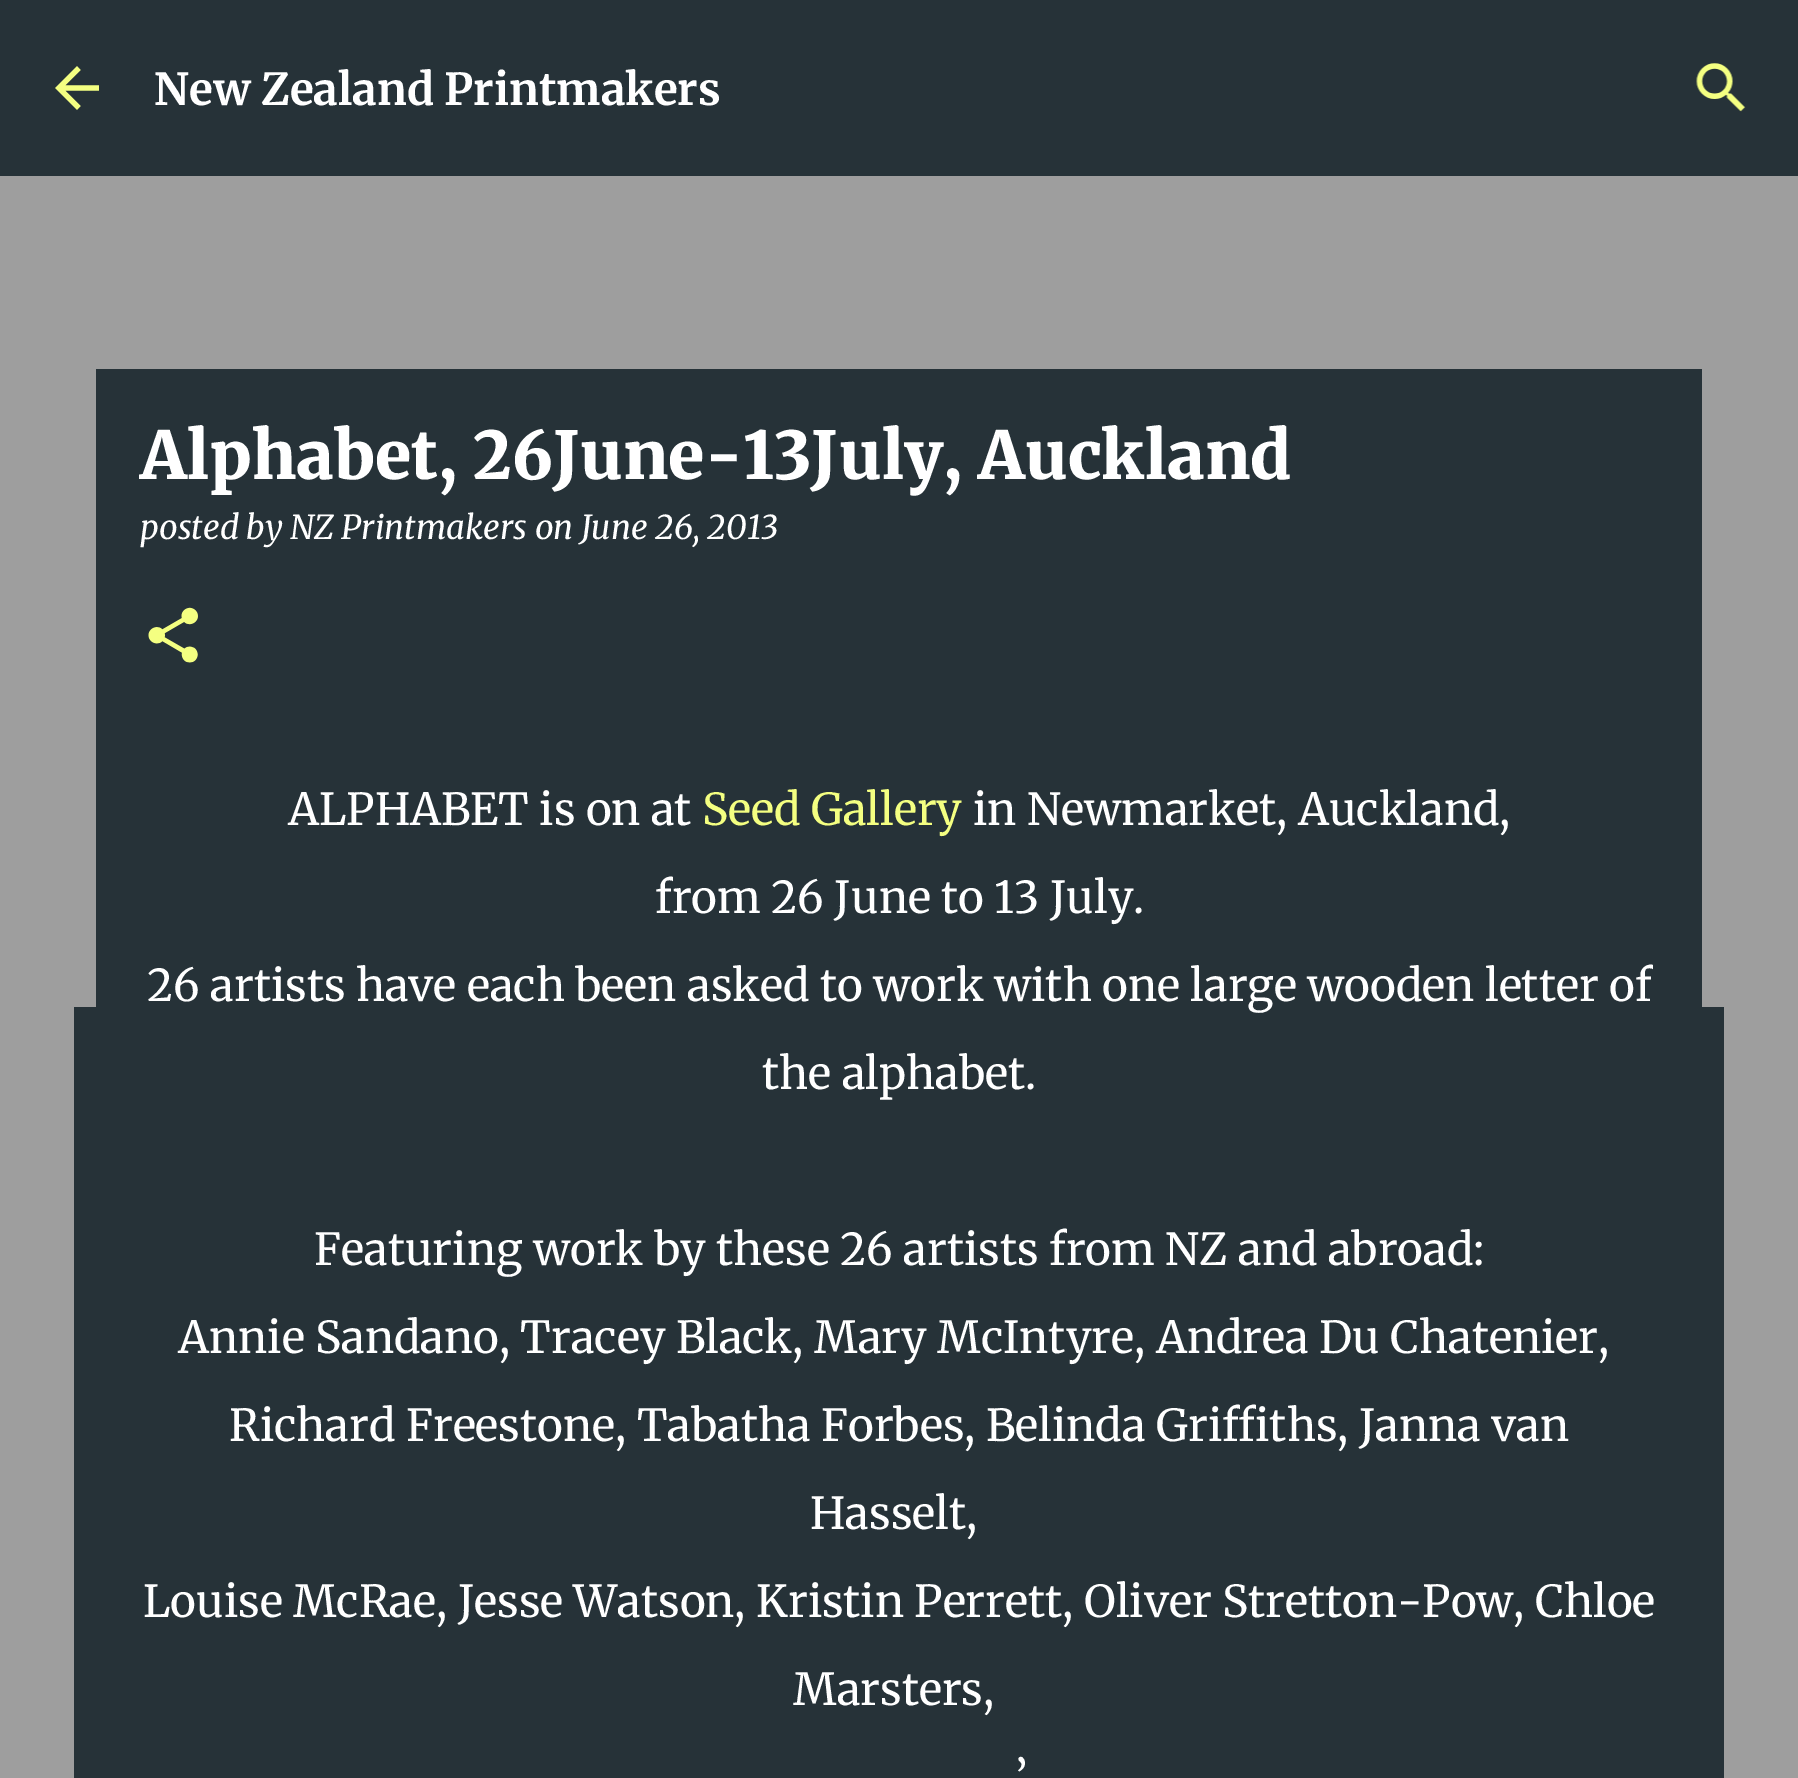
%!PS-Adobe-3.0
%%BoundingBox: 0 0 1798 1778
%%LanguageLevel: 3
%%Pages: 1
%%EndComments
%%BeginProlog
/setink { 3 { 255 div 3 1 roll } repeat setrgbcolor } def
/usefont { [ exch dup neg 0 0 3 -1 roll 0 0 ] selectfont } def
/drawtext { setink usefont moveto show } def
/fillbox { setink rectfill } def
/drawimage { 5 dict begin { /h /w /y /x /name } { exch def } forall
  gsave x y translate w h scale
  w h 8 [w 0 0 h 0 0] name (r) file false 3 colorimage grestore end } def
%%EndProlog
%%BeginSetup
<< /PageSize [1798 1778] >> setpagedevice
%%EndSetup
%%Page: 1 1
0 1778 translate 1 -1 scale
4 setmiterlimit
0 0 1798 1778 158 158 158 fillbox
0 0 1798 176 38 50 56 fillbox
(assets/img1.rgb) 55 66 44 44 drawimage
(New Zealand Printmakers) 154 105 /Merriweather-Bold 44 255 255 255 drawtext
(assets/img2.rgb) 1696 63 50 49 drawimage
74 1007 1650 771 38 50 56 fillbox
96 369 1606 638 38 50 56 fillbox
(Alphabet, 26June-13July, Auckland) 140 479 /Merriweather-Black 66 255 255 255 drawtext
(posted by NZ Printmakers on June 26, 2013) 140 539 /Merriweather-Italic 33 255 255 255 drawtext
(assets/img3.rgb) 148 607 50 56 drawimage
(ALPHABET is on at) 288 825 /Merriweather-Regular 44 255 255 255 drawtext
(Seed Gallery) 702 825 /Merriweather-Regular 44 244 255 129 drawtext
(in Newmarket, Auckland,) 973 825 /Merriweather-Regular 44 255 255 255 drawtext
(from 26 June to 13 July.) 655 913 /Merriweather-Regular 44 255 255 255 drawtext
(26 artists have each been asked to work with one large wooden letter of) 147 1001 /Merriweather-Regular 44 255 255 255 drawtext
(the alphabet.) 762 1089 /Merriweather-Regular 44 255 255 255 drawtext
(Featuring work by these 26 artists from NZ and abroad:) 314 1265 /Merriweather-Regular 44 255 255 255 drawtext
(Annie Sandano, Tracey Black, Mary McIntyre, Andrea Du Chatenier,) 178 1353 /Merriweather-Regular 44 255 255 255 drawtext
(Richard Freestone, Tabatha Forbes, Belinda Griffiths, Janna van) 229 1441 /Merriweather-Regular 44 255 255 255 drawtext
(Hasselt,) 810 1529 /Merriweather-Regular 44 255 255 255 drawtext
(Louise McRae, Jesse Watson, Kristin Perrett, Oliver Stretton-Pow, Chloe) 143 1617 /Merriweather-Regular 44 255 255 255 drawtext
(Marsters,) 793 1705 /Merriweather-Regular 44 255 255 255 drawtext
(’) 1015 1793 /Merriweather-Regular 44 255 255 255 drawtext
showpage
%%EOF
